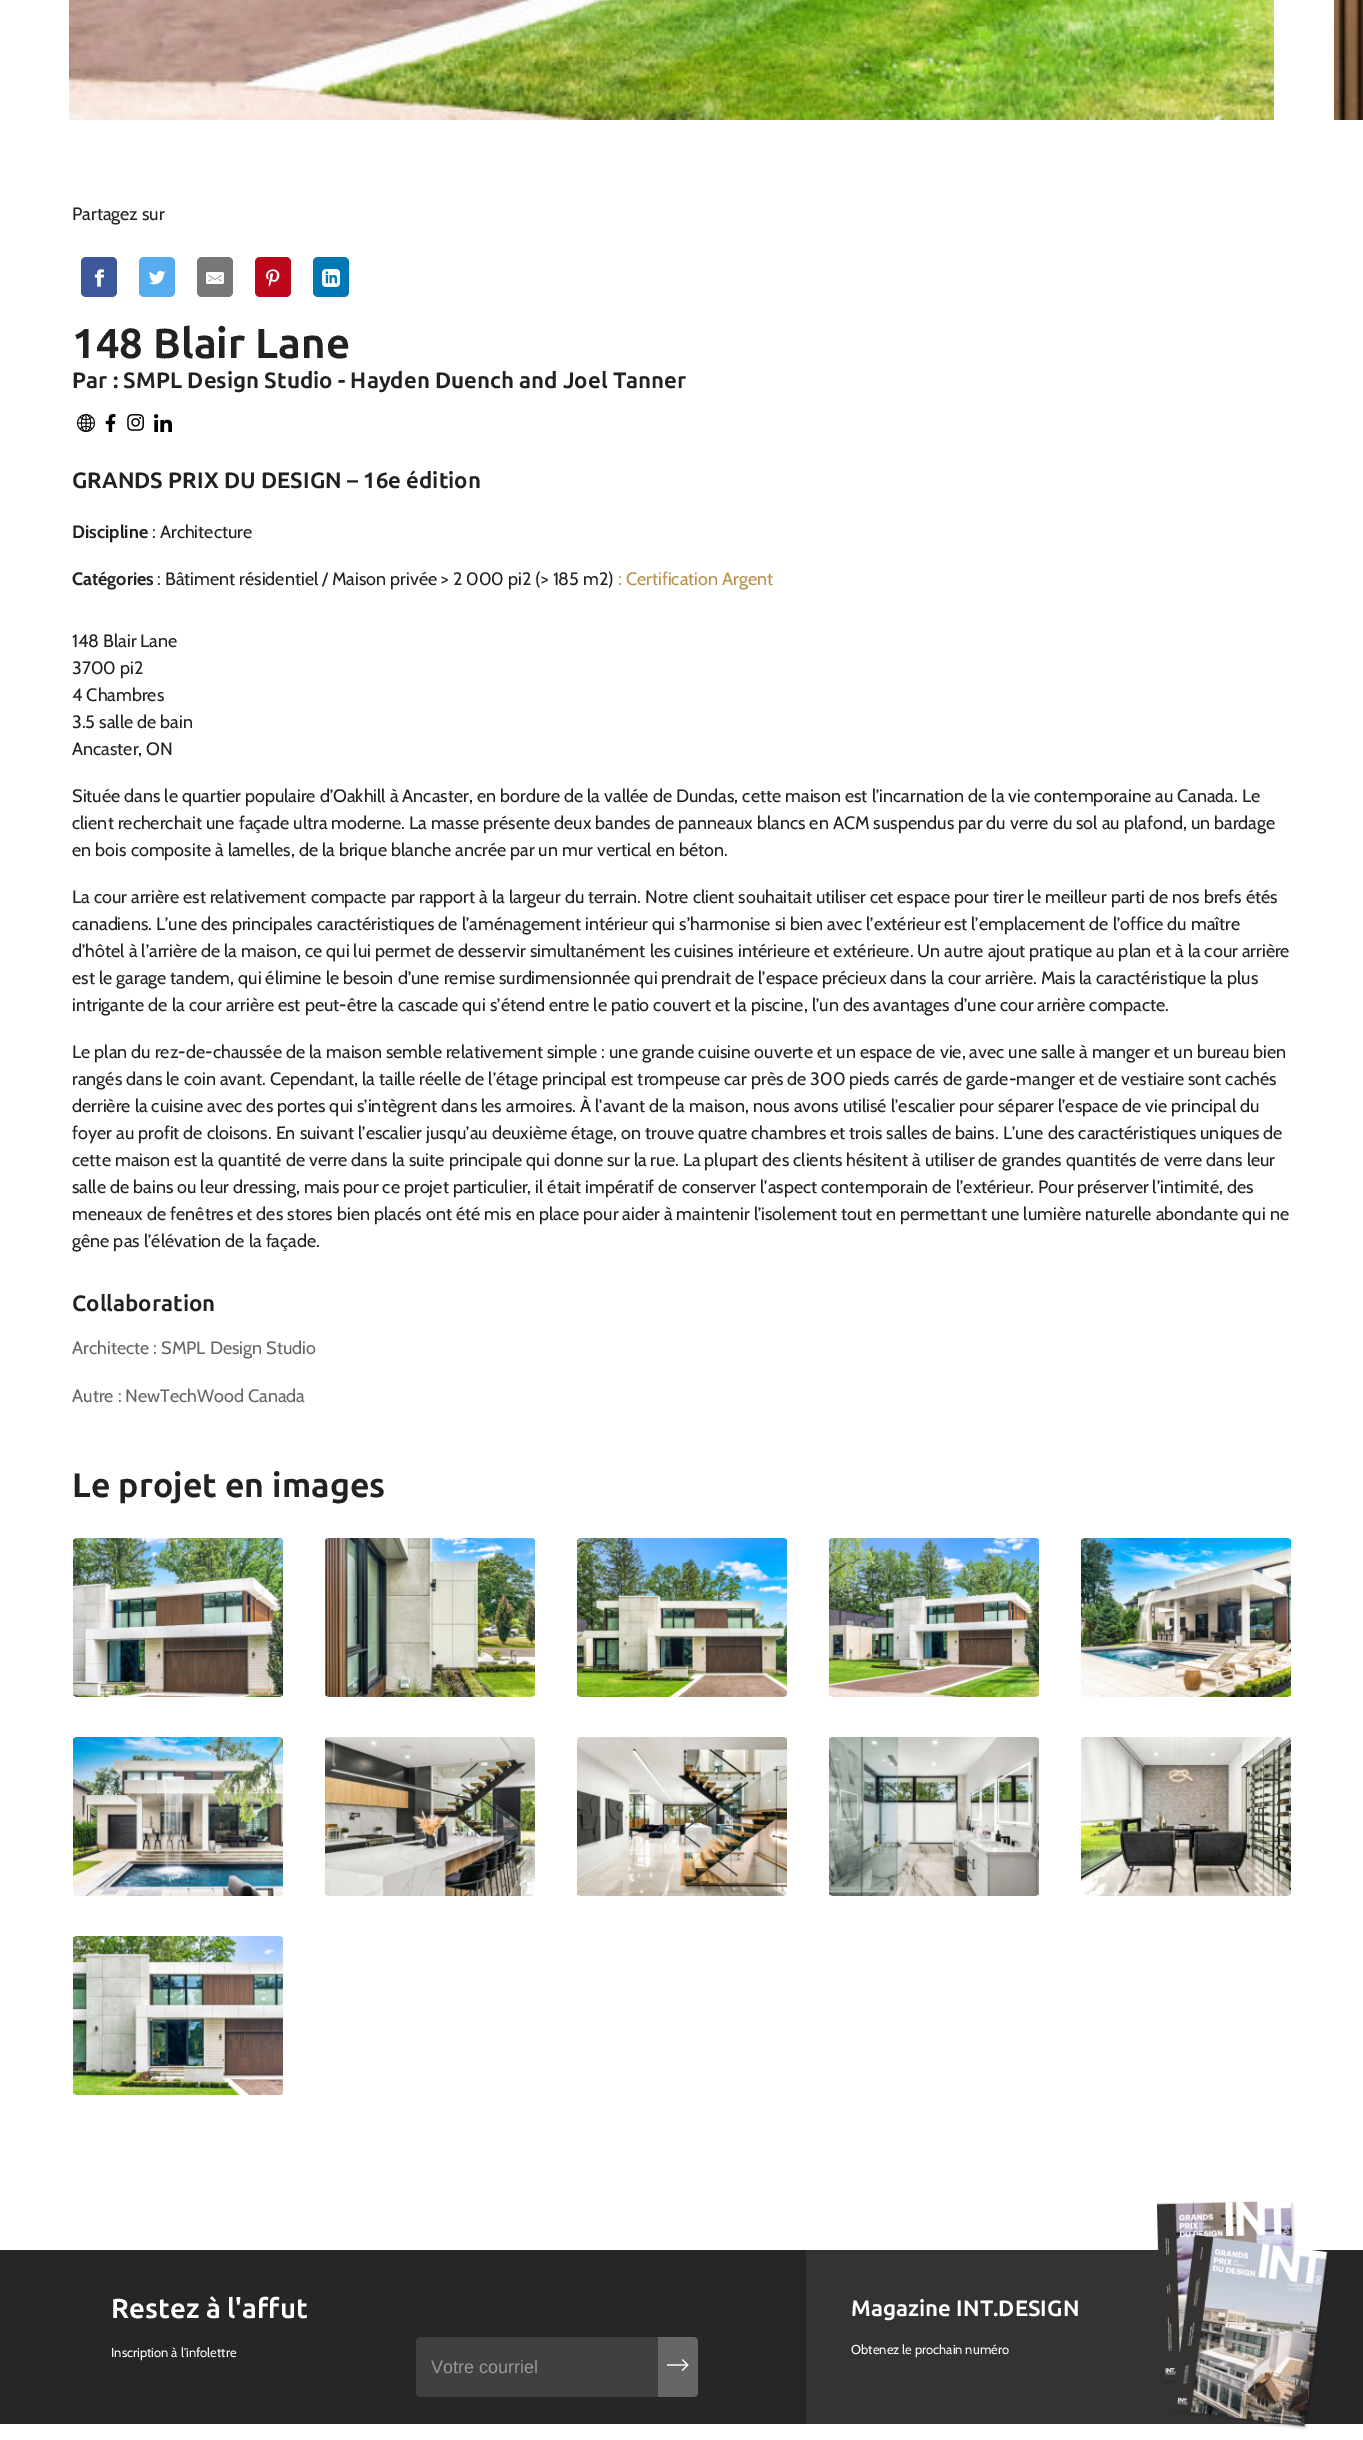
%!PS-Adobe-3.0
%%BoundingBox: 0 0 1363 2440
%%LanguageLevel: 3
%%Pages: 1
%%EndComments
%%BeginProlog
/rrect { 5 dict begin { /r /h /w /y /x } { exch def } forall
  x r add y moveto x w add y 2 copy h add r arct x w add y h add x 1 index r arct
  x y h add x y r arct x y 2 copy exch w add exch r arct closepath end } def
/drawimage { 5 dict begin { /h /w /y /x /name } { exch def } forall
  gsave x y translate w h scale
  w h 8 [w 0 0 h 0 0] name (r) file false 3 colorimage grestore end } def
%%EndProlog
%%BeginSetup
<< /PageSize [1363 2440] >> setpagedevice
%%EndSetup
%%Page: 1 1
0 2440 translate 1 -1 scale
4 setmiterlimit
1 setgray
0 0 1363 2440 rectfill
(images/1.raw) 69 0 1205 120 drawimage
(images/2.raw) 1334 0 29 120 drawimage
0.231 0.349 0.596 setrgbcolor
81 257 36 40 5 rrect fill
(images/3.raw) 94 269 11 18 drawimage
0.333 0.675 0.933 setrgbcolor
139 257 36 40 5 rrect fill
(images/4.raw) 149 270 17 15 drawimage
0.467 setgray
197 257 36 40 5 rrect fill
(images/5.raw) 206 272 18 12 drawimage
0.741 0.031 0.11 setrgbcolor
255 257 36 40 5 rrect fill
(images/6.raw) 266 269 14 18 drawimage
0 0.467 0.71 setrgbcolor
313 257 36 40 5 rrect fill
(images/7.raw) 322 269 18 18 drawimage
(images/8.raw) 77 414 18 18 drawimage
(images/9.raw) 105 414 11 18 drawimage
(images/10.raw) 127 414 17 17 drawimage
(images/11.raw) 154 414 18 18 drawimage
(images/12.raw) 73 1538 210 159 drawimage
(images/13.raw) 325 1538 210 159 drawimage
(images/14.raw) 577 1538 210 159 drawimage
(images/15.raw) 829 1538 210 159 drawimage
(images/16.raw) 1081 1538 210 159 drawimage
(images/17.raw) 73 1737 210 159 drawimage
(images/18.raw) 325 1737 210 159 drawimage
(images/19.raw) 577 1737 210 159 drawimage
(images/20.raw) 829 1737 210 159 drawimage
(images/21.raw) 1081 1737 210 159 drawimage
(images/22.raw) 73 1936 210 159 drawimage
0.149 setgray
0 2250 1363 174 rectfill
0.251 setgray
newpath 421 2337 moveto 658 2337 lineto 658 2397 lineto 421 2397 lineto 418 2397 416 2395 416 2392 curveto 416 2342 lineto 416 2339 418 2337 421 2337 curveto closepath fill
0.4 setgray
newpath 658 2337 moveto 693 2337 lineto 696 2337 698 2339 698 2342 curveto 698 2392 lineto 698 2395 696 2397 693 2397 curveto 658 2397 lineto closepath fill
(images/23.raw) 667 2359 22 12 drawimage
0.2 setgray
806 2250 484 174 rectfill
(images/24.raw) 1157 2200 171 230 drawimage
/Cabin-Regular [18 0 0 -18 0 0] selectfont
0.133 setgray
72 220 moveto (Partagez sur) show
/Ubuntu-Bold [42 0 0 -42 0 0] selectfont
72 358 moveto (148 Blair Lane) show
/Ubuntu-Bold [22.25 0 0 -22.25 0 0] selectfont
72 388 moveto (Par : SMPL Design Studio - Hayden Duench and Joel Tanner) show
72 488 moveto (GRANDS PRIX DU DESIGN – 16e édition) show
/Cabin-Bold [18 0 0 -18 0 0] selectfont
72 538 moveto (Discipline) show
/Cabin-Regular [18 0 0 -18 0 0] selectfont
152 538 moveto (: Architecture) show
/Cabin-Bold [18 0 0 -18 0 0] selectfont
72 585 moveto (Catégories) show
/Cabin-Regular [18 0 0 -18 0 0] selectfont
157 585 moveto (: Bâtiment résidentiel / Maison privée > 2 000 pi2 \(> 185 m2\)) show
0.718 0.565 0.298 setrgbcolor
618 585 moveto (: Certification Argent) show
0.133 setgray
72 647 moveto (148 Blair Lane) show
72 674 moveto (3700 pi2) show
72 701 moveto (4 Chambres) show
72 728 moveto (3.5 salle de bain) show
72 755 moveto (Ancaster, ON) show
72 802 moveto (Située dans le quartier populaire d’Oakhill à Ancaster, en bordure de la vallée de Dundas, cette maison est l’incarnation de la vie contemporaine au Canada. Le) show
72 829 moveto (client recherchait une façade ultra moderne. La masse présente deux bandes de panneaux blancs en ACM suspendus par du verre du sol au plafond, un bardage) show
72 856 moveto (en bois composite à lamelles, de la brique blanche ancrée par un mur vertical en béton.) show
72 903 moveto (La cour arrière est relativement compacte par rapport à la largeur du terrain. Notre client souhaitait utiliser cet espace pour tirer le meilleur parti de nos brefs étés) show
72 930 moveto (canadiens. L’une des principales caractéristiques de l’aménagement intérieur qui s’harmonise si bien avec l’extérieur est l’emplacement de l’office du maître) show
72 957 moveto (d’hôtel à l’arrière de la maison, ce qui lui permet de desservir simultanément les cuisines intérieure et extérieure. Un autre ajout pratique au plan et à la cour arrière) show
72 984 moveto (est le garage tandem, qui élimine le besoin d’une remise surdimensionnée qui prendrait de l’espace précieux dans la cour arrière. Mais la caractéristique la plus) show
72 1011 moveto (intrigante de la cour arrière est peut-être la cascade qui s’étend entre le patio couvert et la piscine, l’un des avantages d’une cour arrière compacte.) show
72 1058 moveto (Le plan du rez-de-chaussée de la maison semble relativement simple : une grande cuisine ouverte et un espace de vie, avec une salle à manger et un bureau bien) show
72 1085 moveto (rangés dans le coin avant. Cependant, la taille réelle de l’étage principal est trompeuse car près de 300 pieds carrés de garde-manger et de vestiaire sont cachés) show
72 1112 moveto (derrière la cuisine avec des portes qui s’intègrent dans les armoires. À l’avant de la maison, nous avons utilisé l’escalier pour séparer l’espace de vie principal du) show
72 1139 moveto (foyer au profit de cloisons. En suivant l’escalier jusqu’au deuxième étage, on trouve quatre chambres et trois salles de bains. L’une des caractéristiques uniques de) show
72 1166 moveto (cette maison est la quantité de verre dans la suite principale qui donne sur la rue. La plupart des clients hésitent à utiliser de grandes quantités de verre dans leur) show
72 1193 moveto (salle de bains ou leur dressing, mais pour ce projet particulier, il était impératif de conserver l’aspect contemporain de l’extérieur. Pour préserver l’intimité, des) show
72 1220 moveto (meneaux de fenêtres et des stores bien placés ont été mis en place pour aider à maintenir l’isolement tout en permettant une lumière naturelle abondante qui ne) show
72 1247 moveto (gêne pas l’élévation de la façade.) show
/Ubuntu-Bold [22.25 0 0 -22.25 0 0] selectfont
72 1311 moveto (Collaboration) show
/Cabin-Regular [18 0 0 -18 0 0] selectfont
0.4 setgray
72 1354 moveto (Architecte : SMPL Design Studio) show
72 1402 moveto (Autre : NewTechWood Canada) show
/Ubuntu-Bold [34 0 0 -34 0 0] selectfont
0.133 setgray
72 1497 moveto (Le projet en images) show
/Ubuntu-Bold [27.5 0 0 -27.5 0 0] selectfont
1 setgray
111 2318 moveto (Restez à l'affut) show
/Cabin-Regular [13 0 0 -13 0 0] selectfont
111 2357 moveto (Inscription à l'infolettre) show
/LiberationSans-Regular [18 0 0 -18 0 0] selectfont
0.6 setgray
431 2373 moveto (Votre courriel) show
/Ubuntu-Bold [22.25 0 0 -22.25 0 0] selectfont
1 setgray
851 2316 moveto (Magazine INT.DESIGN) show
/Cabin-Regular [13 0 0 -13 0 0] selectfont
851 2354 moveto (Obtenez le prochain numéro) show
showpage
%%EOF
